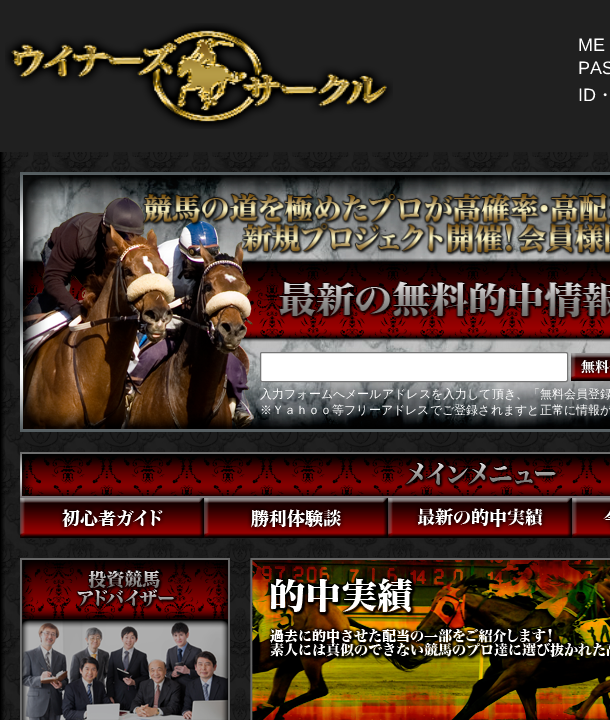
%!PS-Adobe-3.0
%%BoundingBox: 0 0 610 720
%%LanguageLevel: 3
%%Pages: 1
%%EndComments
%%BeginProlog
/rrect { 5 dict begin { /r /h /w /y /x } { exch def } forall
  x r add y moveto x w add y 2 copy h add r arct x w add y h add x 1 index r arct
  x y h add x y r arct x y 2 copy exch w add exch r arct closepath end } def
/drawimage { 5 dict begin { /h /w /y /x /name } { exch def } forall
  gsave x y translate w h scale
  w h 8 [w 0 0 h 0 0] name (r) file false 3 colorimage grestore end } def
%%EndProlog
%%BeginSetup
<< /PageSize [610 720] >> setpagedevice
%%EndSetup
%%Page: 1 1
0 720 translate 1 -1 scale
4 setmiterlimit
0 setgray
0 0 610 720 rectfill
0.125 setgray
0 0 610 152 rectfill
(images/1.raw) 5 23 388 106 drawimage
(images/2.raw) 1 152 609 568 drawimage
(images/3.raw) 20 172 590 260 drawimage
(images/4.raw) 142 192 468 64 drawimage
(images/5.raw) 278 280 332 41 drawimage
1 setgray
260.5 352.5 307 29 1.5 rrect gsave fill grestore
0.463 setgray
stroke
(images/6.raw) 571 353 39 28 drawimage
(images/7.raw) 20 452 590 46 drawimage
(images/8.raw) 20 498 184 40 drawimage
(images/9.raw) 204 498 184 40 drawimage
(images/10.raw) 388 498 184 40 drawimage
(images/11.raw) 572 498 38 40 drawimage
(images/12.raw) 20 558 210 162 drawimage
(images/13.raw) 250 558 360 162 drawimage
/LiberationSans-Regular [18 0 0 -18 0 0] selectfont
1 setgray
578 51 moveto (ME) show
578 74 moveto (PAS) show
578 101 moveto (ID) show
/WenQuanYiZenHei-Medium [18 0 0 -18 0 0] selectfont
596 101 moveto (・) show
/WenQuanYiZenHei-Medium [12 0 0 -12 0 0] selectfont
260 398 moveto (入力フォームへメールアドレスを入力して頂き、「無料会員登録) show
260 414 moveto (※Ｙａｈｏｏ等フリーアドレスでご登録されますと正常に情報が) show
showpage
%%EOF
